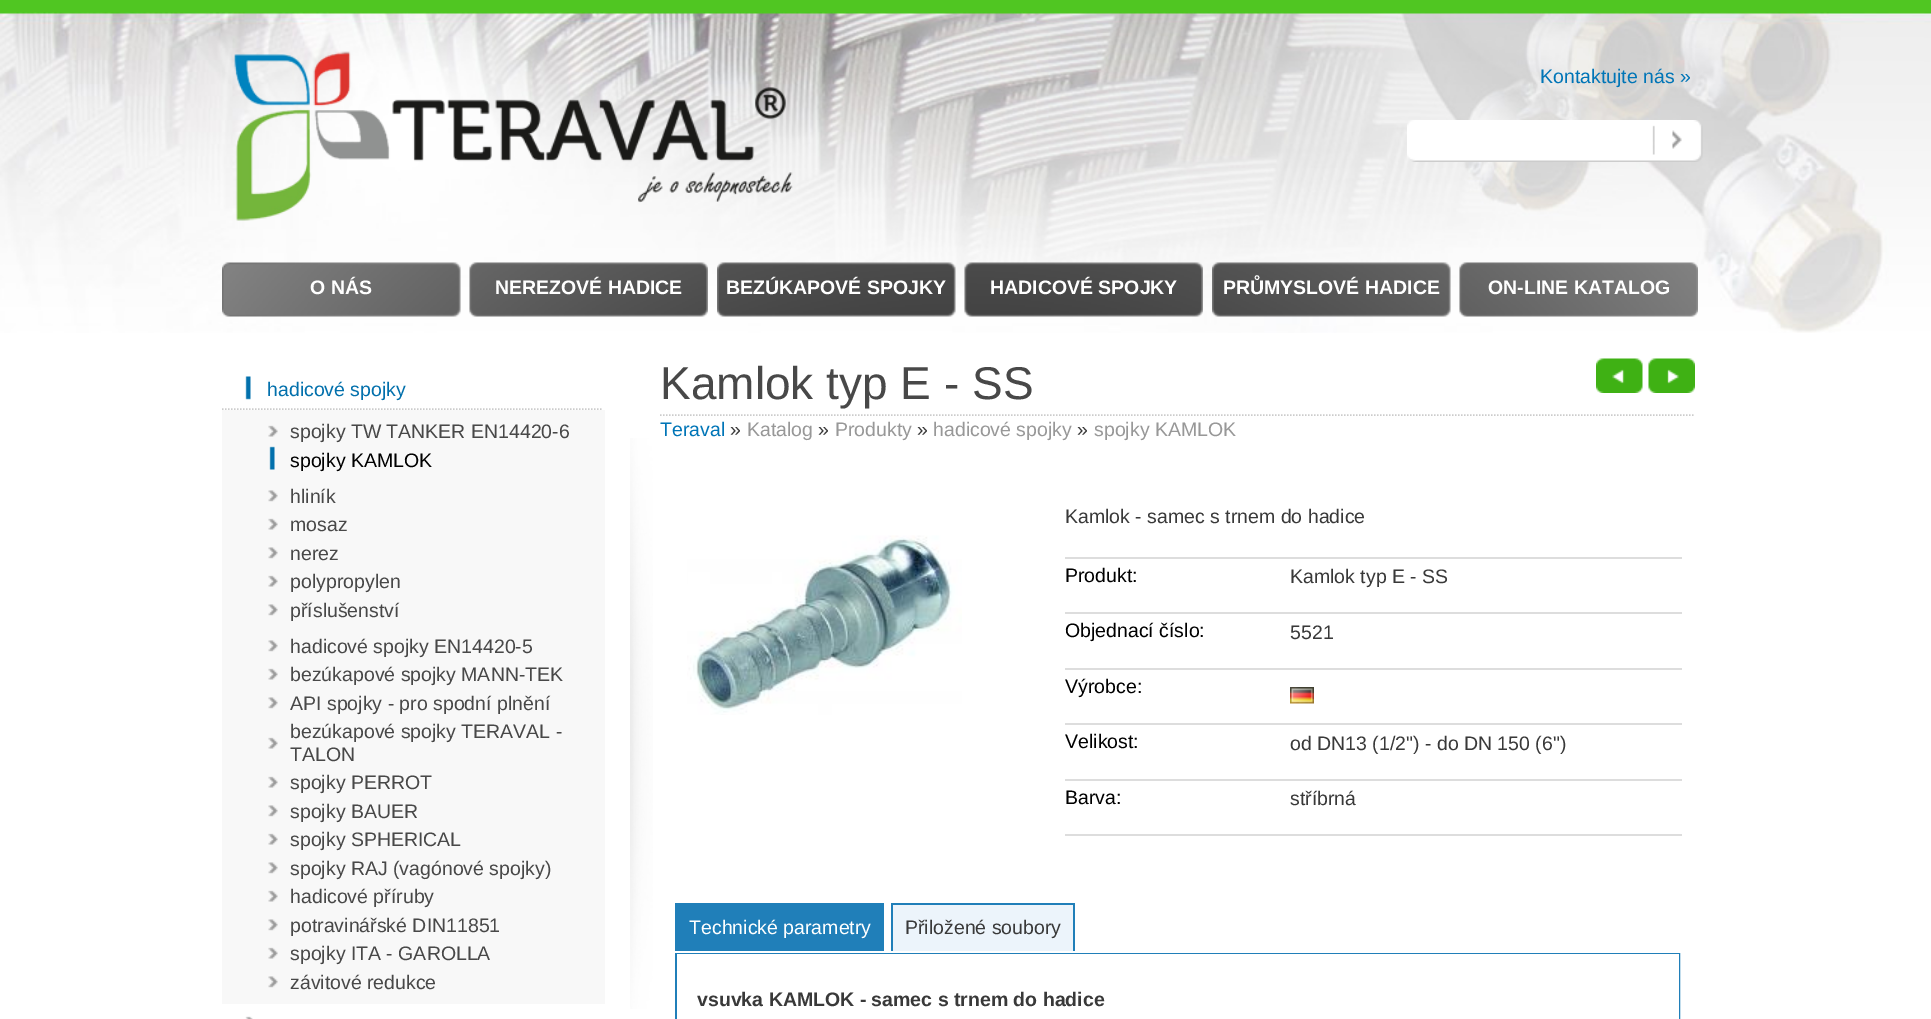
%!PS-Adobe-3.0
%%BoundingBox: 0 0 1931 1019
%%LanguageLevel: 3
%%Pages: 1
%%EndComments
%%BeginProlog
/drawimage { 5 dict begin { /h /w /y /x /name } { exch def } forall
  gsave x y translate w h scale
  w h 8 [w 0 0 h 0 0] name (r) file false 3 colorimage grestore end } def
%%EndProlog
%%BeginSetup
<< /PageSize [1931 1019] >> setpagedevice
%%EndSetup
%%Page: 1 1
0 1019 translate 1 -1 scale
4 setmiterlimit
1 setgray
0 0 1931 1019 rectfill
(images/1.raw) 0 0 1931 12 drawimage
(images/2.raw) 0 12 1931 321 drawimage
(images/3.raw) 234 51 559 170 drawimage
(images/4.raw) 1407 120 296 42 drawimage
(images/5.raw) 222 262 239 55 drawimage
(images/6.raw) 469 262 239 55 drawimage
(images/7.raw) 717 262 239 55 drawimage
(images/8.raw) 964 262 239 55 drawimage
(images/9.raw) 1212 262 239 55 drawimage
(images/10.raw) 1459 262 239 55 drawimage
(images/11.raw) 245 376 6 24 drawimage
0.8 setgray
1.5 setlinewidth
[1.5 1.5] 0 setdash
newpath 222 409 moveto 601.5 409 lineto stroke
0.973 setgray
222 410 383 594 rectfill
(images/12.raw) 268 425 10 12 drawimage
(images/13.raw) 269 446 6 24 drawimage
(images/14.raw) 268 490 10 12 drawimage
(images/12.raw) 268 518 10 12 drawimage
(images/14.raw) 268 547 10 12 drawimage
(images/12.raw) 268 575 10 12 drawimage
(images/14.raw) 268 604 10 12 drawimage
(images/14.raw) 268 640 10 12 drawimage
(images/12.raw) 268 668 10 12 drawimage
(images/14.raw) 268 697 10 12 drawimage
(images/12.raw) 268 737 10 12 drawimage
(images/12.raw) 268 776 10 12 drawimage
(images/14.raw) 268 805 10 12 drawimage
(images/12.raw) 268 833 10 12 drawimage
(images/14.raw) 268 862 10 12 drawimage
(images/12.raw) 268 890 10 12 drawimage
(images/14.raw) 268 919 10 12 drawimage
(images/12.raw) 268 947 10 12 drawimage
(images/14.raw) 268 976 10 12 drawimage
(images/15.raw) 245 1016 8 3 drawimage
(images/16.raw) 630 438 23 571 drawimage
0.8 setgray
newpath 660 415 moveto 1695 415 lineto stroke
(images/17.raw) 1596 358 47 35 drawimage
(images/18.raw) 1648 358 47 35 drawimage
(images/19.raw) 687 535 275 180 drawimage
0.867 setgray
1065 557 617 2 rectfill
1065 612 617 2 rectfill
1065 668 617 2 rectfill
1065 723 617 2 rectfill
(images/20.raw) 1290 687 24 17 drawimage
1065 779 617 2 rectfill
1065 834 617 2 rectfill
0.125 0.498 0.725 setrgbcolor
675 903 209 48 rectfill
0.925 0.957 0.984 setrgbcolor
893 905 180 46 rectfill
0.125 0.498 0.725 setrgbcolor
891 903 183 2 rectfill
1073 903 2 48 rectfill
891 903 2 48 rectfill
2 setlinewidth
[] 0 setdash
676 954 1003 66 rectstroke
1 setgray
677 954 1002 65 rectfill
/LiberationSans-Regular [19.5 0 0 -19.5 0 0] selectfont
0 0.459 0.718 setrgbcolor
1540 83 moveto (Kontaktujte nás ») show
/LiberationSans-Bold [19.5 0 0 -19.5 0 0] selectfont
1 setgray
310 294 moveto (O NÁS) show
495 294 moveto (NEREZOVÉ HADICE) show
726 294 moveto (BEZÚKAPOVÉ SPOJKY) show
990 294 moveto (HADICOVÉ SPOJKY) show
1223 294 moveto (PRŮMYSLOVÉ HADICE) show
1488 294 moveto (ON-LINE KATALOG) show
/LiberationSans-Regular [19.5 0 0 -19.5 0 0] selectfont
0.008 0.439 0.675 setrgbcolor
267 396 moveto (hadicové spojky) show
0.282 setgray
290 438 moveto (spojky TW TANKER EN14420-6) show
0 setgray
290 467 moveto (spojky KAMLOK) show
0.282 setgray
290 503 moveto (hliník) show
290 531 moveto (mosaz) show
290 560 moveto (nerez) show
290 588 moveto (polypropylen) show
290 617 moveto (příslušenství) show
290 653 moveto (hadicové spojky EN14420-5) show
290 681 moveto (bezúkapové spojky MANN-TEK) show
290 710 moveto (API spojky - pro spodní plnění) show
290 738 moveto (bezúkapové spojky TERAVAL -) show
290 761 moveto (TALON) show
290 789 moveto (spojky PERROT) show
290 818 moveto (spojky BAUER) show
290 846 moveto (spojky SPHERICAL) show
290 875 moveto (spojky RAJ \(vagónové spojky\)) show
290 903 moveto (hadicové příruby) show
290 932 moveto (potravinářské DIN11851) show
290 960 moveto (spojky ITA - GAROLLA) show
290 989 moveto (závitové redukce) show
/LiberationSans-Regular [46 0 0 -46 0 0] selectfont
660 399 moveto (Kamlok typ E - SS) show
/LiberationSans-Regular [19.5 0 0 -19.5 0 0] selectfont
0 0.459 0.718 setrgbcolor
660 436 moveto (Teraval) show
0.224 setgray
730 436 moveto (») show
0.596 setgray
747 436 moveto (Katalog) show
0.224 setgray
818 436 moveto (») show
0.596 setgray
835 436 moveto (Produkty) show
0.224 setgray
917 436 moveto (») show
0.596 setgray
933 436 moveto (hadicové spojky) show
0.224 setgray
1077 436 moveto (») show
0.596 setgray
1094 436 moveto (spojky KAMLOK) show
0.224 setgray
1065 523 moveto (Kamlok - samec s trnem do hadice) show
0 setgray
1065 582 moveto (Produkt:) show
0.224 setgray
1290 583 moveto (Kamlok typ E - SS) show
0 setgray
1065 637 moveto (Objednací číslo:) show
0.224 setgray
1290 639 moveto (5521) show
0 setgray
1065 693 moveto (Výrobce:) show
1065 748 moveto (Velikost:) show
0.224 setgray
1290 750 moveto (od DN13 \(1/2"\) - do DN 150 \(6"\)) show
0 setgray
1065 804 moveto (Barva:) show
0.224 setgray
1290 805 moveto (stříbrná) show
1 setgray
689 934 moveto (Technické parametry) show
0.224 setgray
905 934 moveto (Přiložené soubory) show
/LiberationSans-Bold [19.5 0 0 -19.5 0 0] selectfont
697 1006 moveto (vsuvka KAMLOK - samec s trnem do hadice) show
showpage
%%EOF
